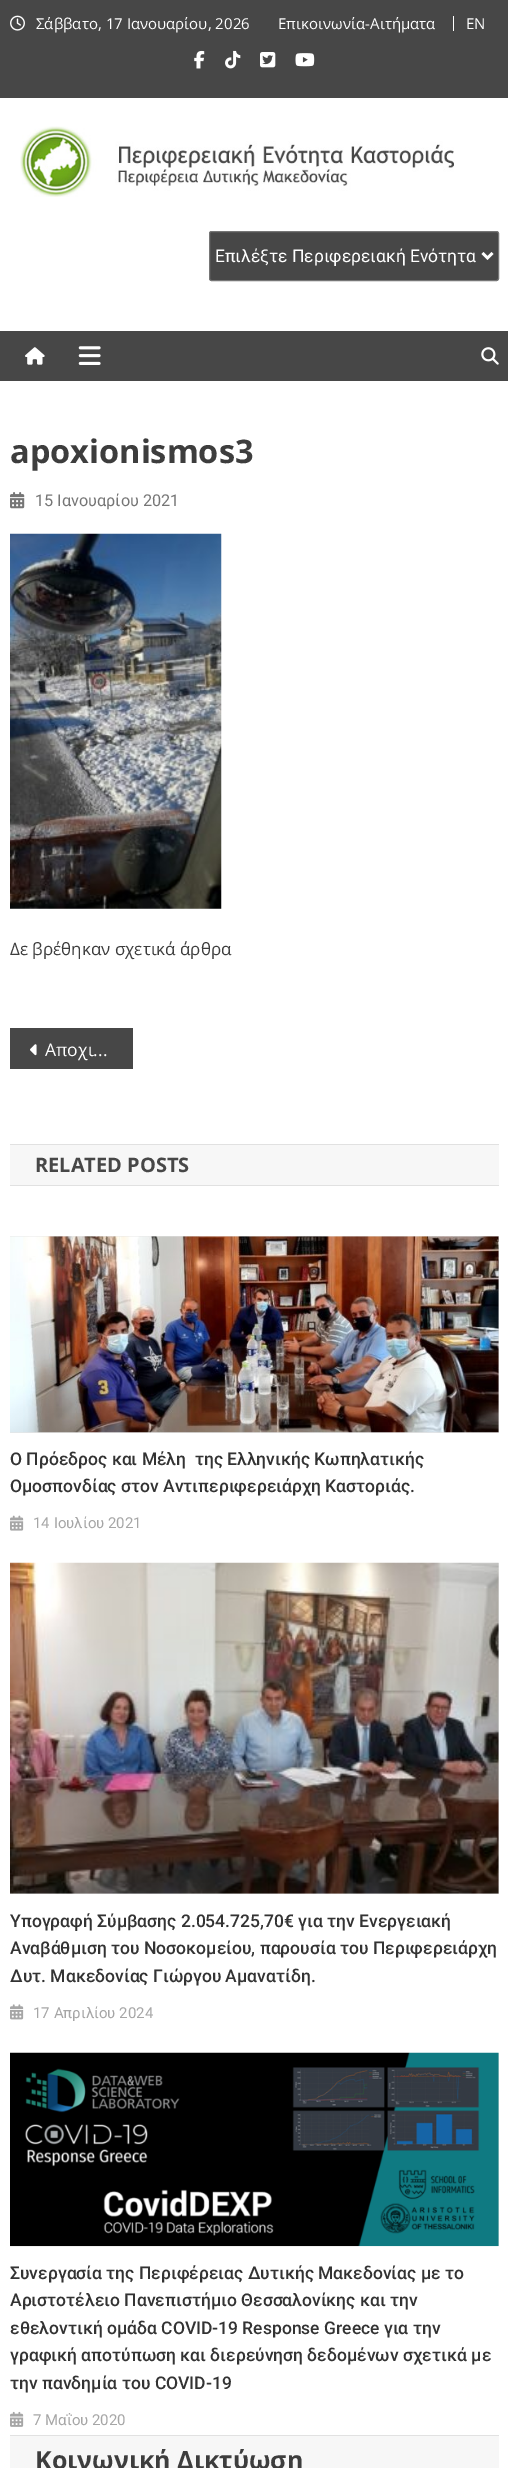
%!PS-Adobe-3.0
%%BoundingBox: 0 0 508 2468
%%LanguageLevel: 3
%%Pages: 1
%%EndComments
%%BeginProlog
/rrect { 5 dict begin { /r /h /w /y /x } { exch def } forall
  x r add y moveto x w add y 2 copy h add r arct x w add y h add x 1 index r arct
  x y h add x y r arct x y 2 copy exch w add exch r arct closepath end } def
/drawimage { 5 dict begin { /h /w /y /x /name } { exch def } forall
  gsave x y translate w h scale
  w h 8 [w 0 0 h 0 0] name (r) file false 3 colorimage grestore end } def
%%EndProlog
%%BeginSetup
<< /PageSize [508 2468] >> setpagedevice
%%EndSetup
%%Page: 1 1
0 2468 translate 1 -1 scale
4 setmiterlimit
1 setgray
0 0 508 2468 rectfill
0.278 setgray
0 0 508 98 rectfill
(images/1.raw) 10 15 15 16 drawimage
1 setgray
453 16 1 15 rectfill
(images/2.raw) 194 50 11 19 drawimage
(images/3.raw) 225 50 16 19 drawimage
(images/4.raw) 260 52 16 16 drawimage
(images/5.raw) 295 53 20 14 drawimage
(images/6.raw) 20 126 434 71 drawimage
0.278 setgray
209.5 231.5 289 49 2 rrect gsave fill grestore
0.463 setgray
stroke
1 setgray
2.5 setlinewidth
newpath 482.5 253 moveto 487.5 258 lineto 492.5 253 lineto stroke
0.278 setgray
0 331 508 50 rectfill
(images/7.raw) 25 347 20 18 drawimage
(images/8.raw) 78 346 23 19 drawimage
(images/9.raw) 481 347 18 18 drawimage
(images/10.raw) 10 492 15 17 drawimage
(images/11.raw) 10 533 212 376 drawimage
10 1028 123 41 rectfill
(images/12.raw) 30 1044 7 12 drawimage
0.969 setgray
10 1145 489 40 rectfill
0.882 setgray
10 1144 489 1 rectfill
10 1185 489 1 rectfill
0.898 setgray
10 1236 489 197 rectfill
(images/13.raw) 10 1236 489 197 drawimage
(images/14.raw) 10 1515 14 16 drawimage
10 1563 489 331 rectfill
(images/15.raw) 10 1562 489 332 drawimage
(images/16.raw) 10 2004 14 16 drawimage
498 2053 1 193 rectfill
(images/17.raw) 10 2052 489 195 drawimage
(images/18.raw) 10 2411 14 16 drawimage
0.969 setgray
10 2436 489 32 rectfill
0.882 setgray
10 2435 489 1 rectfill
/OpenSans-Regular [15 0 0 -15 0 0] selectfont
1 setgray
36 29 moveto (Σάββατο, 17 Ιανουαρίου, 2026) show
278 29 moveto (Επικοινωνία-Αιτήματα) show
466 29 moveto (EN) show
/Roboto-Regular [17.5 0 0 -17.5 0 0] selectfont
215 262 moveto (Επιλέξτε Περιφερειακή Ενότητα) show
/OpenSans-Bold [32.5 0 0 -32.5 0 0] selectfont
0.239 setgray
10 463 moveto (apoxionismos3) show
/Roboto-Regular [16.25 0 0 -16.25 0 0] selectfont
0.463 setgray
35 506 moveto (15 Ιανουαρίου 2021) show
/OpenSans-Regular [17 0 0 -17 0 0] selectfont
0.239 setgray
10 955 moveto (Δε βρέθηκαν σχετικά άρθρα) show
/OpenSans-Regular [17.5 0 0 -17.5 0 0] selectfont
1 setgray
45 1056 moveto (Αποχι...) show
/OpenSans-Bold [20 0 0 -20 0 0] selectfont
0.278 setgray
35 1172 moveto (RELATED POSTS) show
/Roboto-Medium [17.5 0 0 -17.5 0 0] selectfont
0.2 setgray
10 1465 moveto (Ο Πρόεδρος και Μέλη  της Ελληνικής Κωπηλατικής) show
10 1492 moveto (Ομοσπονδίας στον Αντιπεριφερειάρχη Καστοριάς.) show
/Roboto-Regular [15 0 0 -15 0 0] selectfont
0.651 setgray
33 1528 moveto (14 Ιουλίου 2021) show
/Roboto-Medium [17.5 0 0 -17.5 0 0] selectfont
0.2 setgray
10 1927 moveto (Υπογραφή Σύμβασης 2.054.725,70€ για την Ενεργειακή) show
10 1954 moveto (Αναβάθμιση του Νοσοκομείου, παρουσία του Περιφερειάρχη) show
10 1982 moveto (Δυτ. Μακεδονίας Γιώργου Αμανατίδη.) show
/Roboto-Regular [15 0 0 -15 0 0] selectfont
0.651 setgray
33 2018 moveto (17 Απριλίου 2024) show
/Roboto-Medium [17.5 0 0 -17.5 0 0] selectfont
0.2 setgray
10 2279 moveto (Συνεργασία της Περιφέρειας Δυτικής Μακεδονίας με το) show
10 2306 moveto (Αριστοτέλειο Πανεπιστήμιο Θεσσαλονίκης και την) show
10 2334 moveto (εθελοντική ομάδα COVID-19 Response Greece για την) show
10 2361 moveto (γραφική αποτύπωση και διερεύνηση δεδομένων σχετικά με) show
10 2389 moveto (την πανδημία του COVID-19) show
/Roboto-Regular [15 0 0 -15 0 0] selectfont
0.651 setgray
33 2425 moveto (7 Μαΐου 2020) show
/OpenSans-Bold [25 0 0 -25 0 0] selectfont
0.239 setgray
35 2469 moveto (Κοινωνική Δικτύωση) show
showpage
%%EOF
